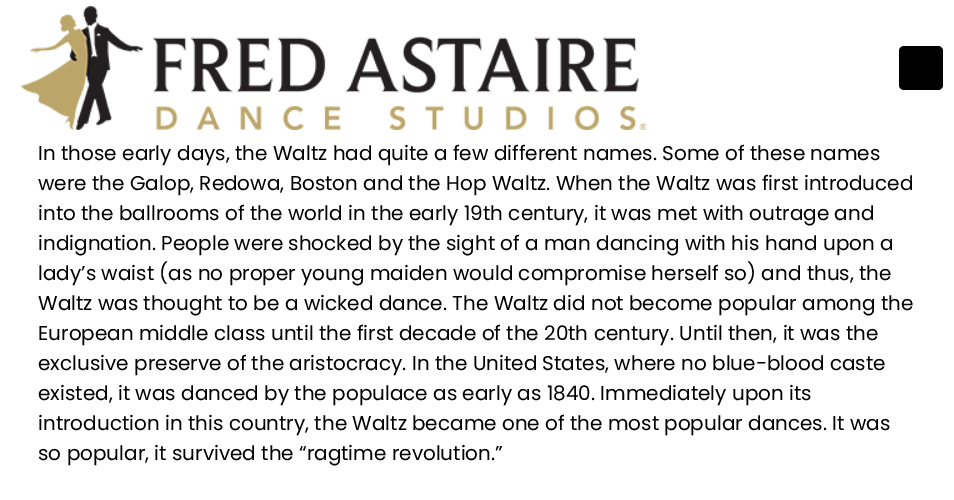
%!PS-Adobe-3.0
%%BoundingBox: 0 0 954 500
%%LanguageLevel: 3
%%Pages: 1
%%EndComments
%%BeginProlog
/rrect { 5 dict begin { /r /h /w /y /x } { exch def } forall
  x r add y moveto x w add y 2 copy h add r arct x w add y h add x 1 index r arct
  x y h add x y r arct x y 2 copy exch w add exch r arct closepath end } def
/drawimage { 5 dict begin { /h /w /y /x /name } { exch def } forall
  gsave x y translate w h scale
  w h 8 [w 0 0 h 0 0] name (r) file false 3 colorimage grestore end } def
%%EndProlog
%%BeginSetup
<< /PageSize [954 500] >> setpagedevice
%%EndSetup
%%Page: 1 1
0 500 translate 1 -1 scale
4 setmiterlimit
1 setgray
0 0 954 500 rectfill
(images/1.raw) 21 6 626 124 drawimage
0 setgray
899 46 44 44 5 rrect fill
/Poppins-Regular [20 0 0 -20 0 0] selectfont
38 160 moveto (In those early days, the Waltz had quite a few different names. Some of these names) show
38 190 moveto (were the Galop, Redowa, Boston and the Hop Waltz. When the Waltz was first introduced) show
38 220 moveto (into the ballrooms of the world in the early 19th century, it was met with outrage and) show
38 250 moveto (indignation. People were shocked by the sight of a man dancing with his hand upon a) show
38 280 moveto (lady’s waist \(as no proper young maiden would compromise herself so\) and thus, the) show
38 310 moveto (Waltz was thought to be a wicked dance. The Waltz did not become popular among the) show
38 340 moveto (European middle class until the first decade of the 20th century. Until then, it was the) show
38 370 moveto (exclusive preserve of the aristocracy. In the United States, where no blue-blood caste) show
38 400 moveto (existed, it was danced by the populace as early as 1840. Immediately upon its) show
38 430 moveto (introduction in this country, the Waltz became one of the most popular dances. It was) show
38 460 moveto (so popular, it survived the “ragtime revolution.”) show
showpage
%%EOF
